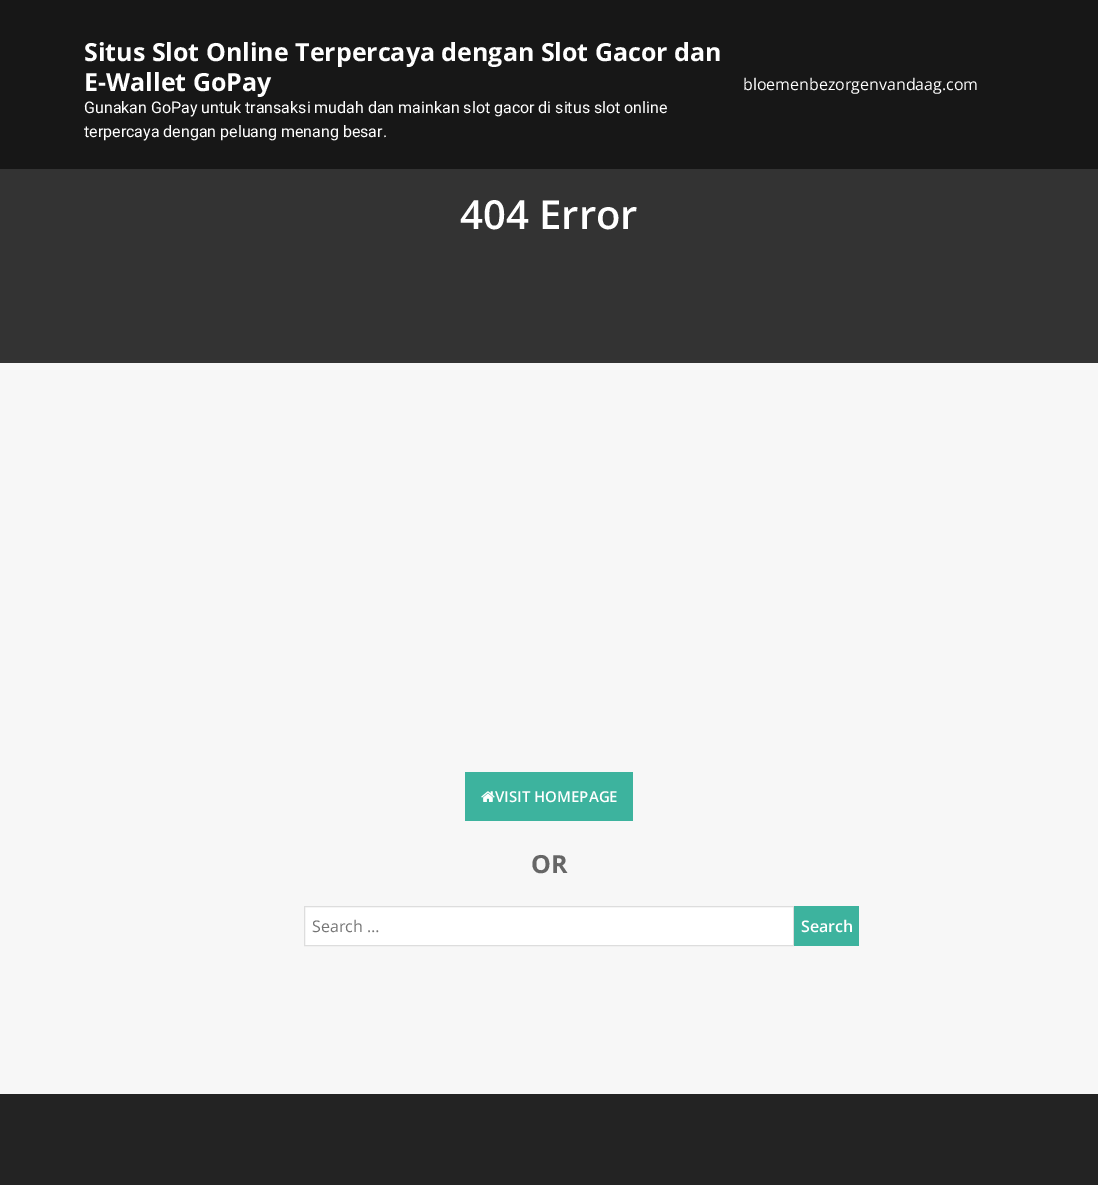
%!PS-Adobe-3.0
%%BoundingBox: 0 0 1098 1185
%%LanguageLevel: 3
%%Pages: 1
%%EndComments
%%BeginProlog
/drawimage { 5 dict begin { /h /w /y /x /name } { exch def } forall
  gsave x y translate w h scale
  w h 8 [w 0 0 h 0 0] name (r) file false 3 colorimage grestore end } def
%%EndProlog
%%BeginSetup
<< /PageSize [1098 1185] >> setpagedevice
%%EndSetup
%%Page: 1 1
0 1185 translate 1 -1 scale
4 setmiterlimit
0.2 setgray
0 0 1098 1185 rectfill
0.09 setgray
0 0 1098 169 rectfill
0.969 setgray
0 363 1098 731 rectfill
0.239 0.702 0.62 setrgbcolor
465 772 168 49 rectfill
(images/1.raw) 481 791 14 11 drawimage
1 setgray
newpath 304.5 906.5 moveto 793.5 906.5 lineto 793.5 945.5 lineto 304.5 945.5 lineto closepath gsave fill grestore
0.867 setgray
stroke
0.239 0.702 0.62 setrgbcolor
794 906 65 40 rectfill
0.137 setgray
0 1094 1098 91 rectfill
/OpenSans-Bold [25 0 0 -25 0 0] selectfont
1 setgray
84 61 moveto (Situs Slot Online Terpercaya dengan Slot Gacor dan) show
84 91 moveto (E-Wallet GoPay) show
/Roboto-Regular [16 0 0 -16 0 0] selectfont
84 113 moveto (Gunakan GoPay untuk transaksi mudah dan mainkan slot gacor di situs slot online) show
84 137 moveto (terpercaya dengan peluang menang besar.) show
/OpenSans-Regular [16 0 0 -16 0 0] selectfont
743 90 moveto (bloemenbezorgenvandaag.com) show
/OpenSans-SemiBold [40 0 0 -40 0 0] selectfont
460 229 moveto (404 Error) show
/OpenSans-SemiBold [15 0 0 -15 0 0] selectfont
495 802 moveto (VISIT HOMEPAGE) show
/OpenSans-Bold [25 0 0 -25 0 0] selectfont
0.4 setgray
531 873 moveto (OR) show
/OpenSans-Regular [16 0 0 -16 0 0] selectfont
0.459 setgray
312 932 moveto (Search …) show
/OpenSans-SemiBold [16 0 0 -16 0 0] selectfont
1 setgray
801 932 moveto (Search) show
showpage
%%EOF
